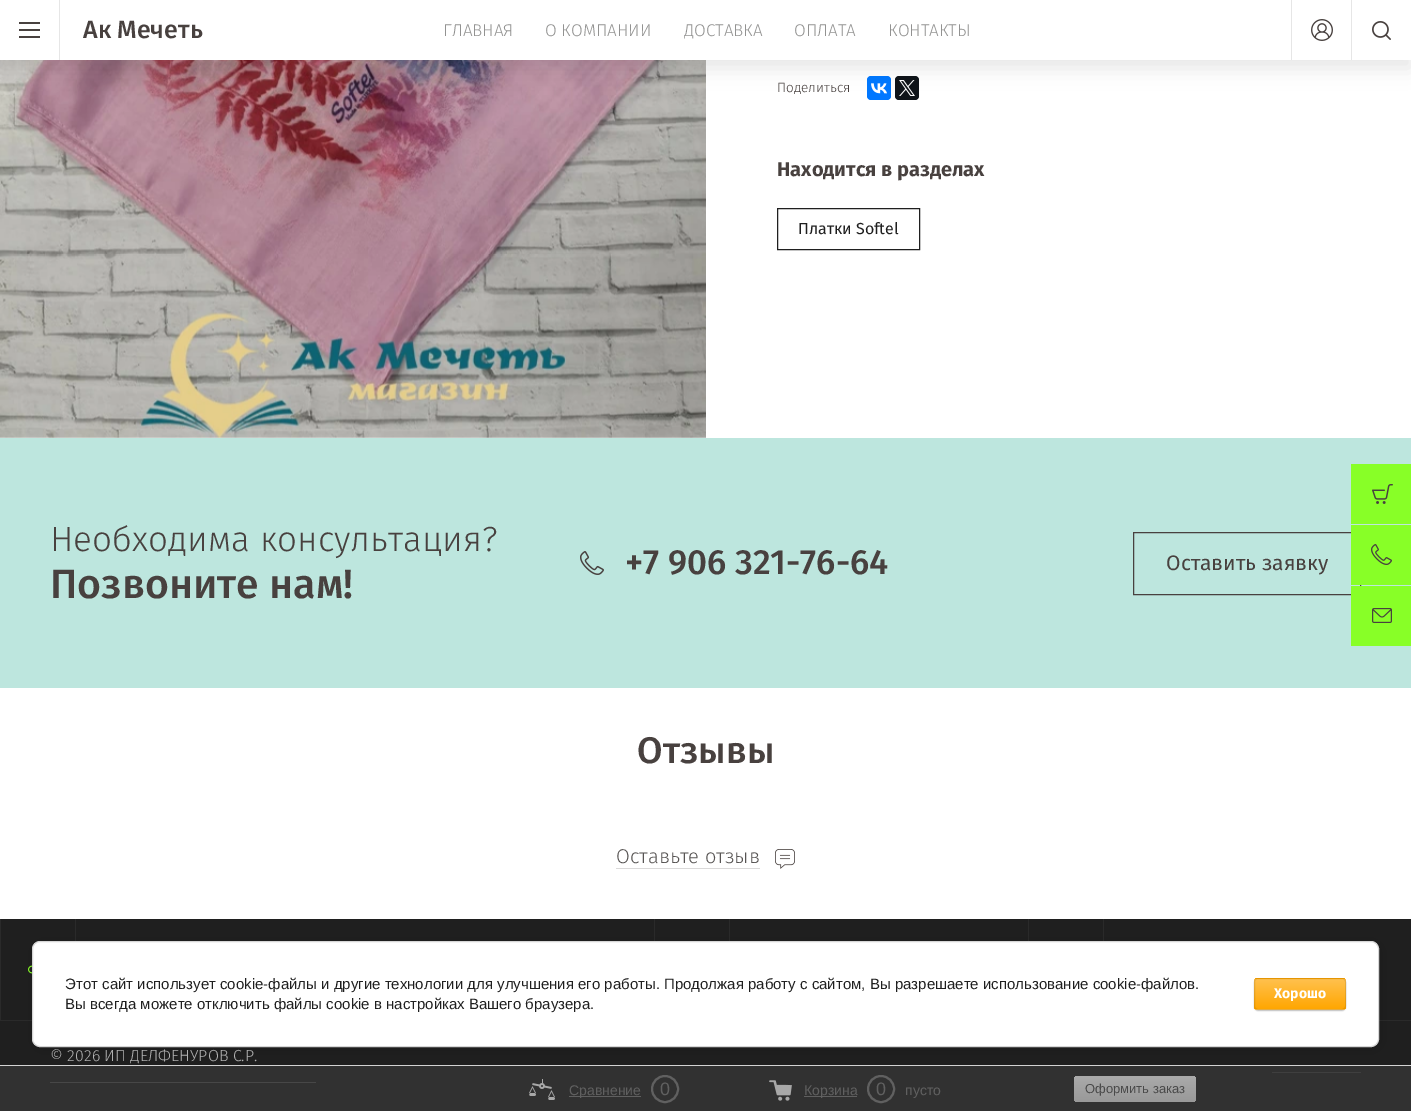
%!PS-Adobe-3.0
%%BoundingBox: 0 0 1411 1111
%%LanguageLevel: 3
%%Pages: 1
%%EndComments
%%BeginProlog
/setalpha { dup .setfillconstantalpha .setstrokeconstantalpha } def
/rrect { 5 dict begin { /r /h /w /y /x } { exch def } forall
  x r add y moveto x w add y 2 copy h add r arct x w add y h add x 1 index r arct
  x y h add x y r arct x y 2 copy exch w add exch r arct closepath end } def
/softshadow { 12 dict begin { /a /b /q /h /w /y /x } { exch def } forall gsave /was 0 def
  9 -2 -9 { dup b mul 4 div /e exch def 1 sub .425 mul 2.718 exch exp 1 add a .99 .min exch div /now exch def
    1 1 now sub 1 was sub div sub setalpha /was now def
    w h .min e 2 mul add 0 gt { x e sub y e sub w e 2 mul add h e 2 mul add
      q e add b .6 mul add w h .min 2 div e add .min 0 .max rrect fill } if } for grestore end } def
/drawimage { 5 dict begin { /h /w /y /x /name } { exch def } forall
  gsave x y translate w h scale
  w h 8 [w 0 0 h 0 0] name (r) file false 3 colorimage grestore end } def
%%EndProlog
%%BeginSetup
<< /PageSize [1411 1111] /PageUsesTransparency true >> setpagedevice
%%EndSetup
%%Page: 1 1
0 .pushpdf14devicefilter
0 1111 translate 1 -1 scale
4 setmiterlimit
1 setgray
0 0 1411 1111 rectfill
(images/3.raw) 0 60 706 378 drawimage
0 0.467 1 setrgbcolor
867 76 24 24 4 rrect fill
(images/4.raw) 871 83 16 11 drawimage
0.059 0.078 0.098 setrgbcolor
895 76 24 24 4 rrect fill
(images/5.raw) 899 80 16 16 drawimage
0 setgray
0 8 1411 60 0 10 0.1 softshadow
1 setgray
0 0 1411 60 rectfill
0.902 setgray
59 0 1 60 rectfill
0.282 0.255 0.247 setrgbcolor
19 22 21 2 rectfill
19 29 21 2 rectfill
19 36 21 2 rectfill
(images/1.raw) 1311 19 22 22 drawimage
0.902 setgray
1291 0 1 60 rectfill
(images/2.raw) 1372 21 19 19 drawimage
1351 0 1 60 rectfill
0.122 setgray
777.5 208.5 142 41 rectstroke
0.741 0.902 0.871 setrgbcolor
0 438 1411 250 rectfill
(images/6.raw) 580 551 24 24 drawimage
0.282 0.255 0.247 setrgbcolor
1133.5 532.5 227 62 rectstroke
0.855 0.851 0.851 setrgbcolor
616 868 144 1 rectfill
(images/7.raw) 775 849 20 20 drawimage
0.122 setgray
0 919 1411 192 rectfill
1 setgray
50 1082 266 1 rectfill
0.698 setgray
1272 1072 89 1 rectfill
0.9 setalpha
0.2 setgray
0 1066 1411 45 rectfill
1 setalpha
0.831 setgray
0 1065 1411 1 rectfill
(images/8.raw) 529 1079 26 21 drawimage
0.376 setgray
569 1096 72 1 rectfill
2 setlinewidth
newpath 665 1089 13 0 360 arc closepath stroke
(images/9.raw) 769 1080 23 21 drawimage
804 1096 53 1 rectfill
newpath 881 1089 13 0 360 arc closepath stroke
gsave 1074 1076 122 26 4 rrect clip newpath
<< /ShadingType 2 /ColorSpace /DeviceRGB /Coords [1135 1076 1135 1102] /Extend [true true] /Function << /FunctionType 2 /Domain [0 1] /C0 [0.667 0.667 0.667] /C1 [0.6 0.6 0.6] /N 1 >> >> shfill grestore
0.165 setgray
0 1020 1411 1 rectfill
(images/10.raw) 28 965 4 9 drawimage
75 919 1 22 rectfill
0 919 1 101 rectfill
729 919 1 22 rectfill
654 919 1 22 rectfill
1103 919 1 22 rectfill
1028 919 1 22 rectfill
0.533 1 0.153 setrgbcolor
1351 464 60 60 rectfill
(images/11.raw) 1372 484 21 20 drawimage
1351 525 60 60 rectfill
(images/12.raw) 1371 544 21 21 drawimage
1351 586 60 60 rectfill
(images/13.raw) 1372 608 20 15 drawimage
0 setgray
34 943 1347 106 8 9 0.14 softshadow
1 setgray
32.5 941.5 1346 105 7.5 rrect gsave fill grestore
0.839 setgray
1 setlinewidth
stroke
0 setgray
1254 979 92 32 4 0.5 0.2 softshadow
gsave
1254 978 92 32 4 rrect clip newpath
gsave newpath 1254 978 moveto 1346 978 lineto 1346 979 lineto 1254 979 lineto closepath clip newpath
<< /ShadingType 2 /ColorSpace /DeviceRGB /Coords [1300 949 1300 979] /Extend [true true] /Function << /FunctionType 2 /Domain [0 1] /C0 [1 0.757 0.306] /C1 [1 0.651 0.004] /N 1 >> >> shfill grestore
gsave newpath 1254 979 moveto 1346 979 lineto 1346 1009 lineto 1254 1009 lineto closepath clip newpath
<< /ShadingType 2 /ColorSpace /DeviceRGB /Coords [1300 979 1300 1009] /Extend [true true] /Function << /FunctionType 2 /Domain [0 1] /C0 [1 0.757 0.306] /C1 [1 0.651 0.004] /N 1 >> >> shfill grestore
gsave newpath 1254 1009 moveto 1346 1009 lineto 1346 1010 lineto 1254 1010 lineto closepath clip newpath
<< /ShadingType 2 /ColorSpace /DeviceRGB /Coords [1300 1009 1300 1039] /Extend [true true] /Function << /FunctionType 2 /Domain [0 1] /C0 [1 0.757 0.306] /C1 [1 0.651 0.004] /N 1 >> >> shfill grestore
grestore
0.1 setalpha
1254.5 978.5 91 31 3.5 rrect stroke
/FiraSans-Medium [25 0 0 -25 0 0] selectfont
1 setalpha
0.282 0.255 0.247 setrgbcolor
83 38 moveto (Ак Мечеть) show
/FiraSans-Light [17 0 0 -17 0 0] selectfont
0.573 0.573 0.569 setrgbcolor
443 36 moveto (ГЛАВНАЯ) show
545 36 moveto (О КОМПАНИИ) show
684 36 moveto (ДОСТАВКА) show
794 36 moveto (ОПЛАТА) show
888 36 moveto (КОНТАКТЫ) show
/FiraSans-Light [13.5 0 0 -13.5 0 0] selectfont
0.282 0.255 0.247 setrgbcolor
777 92 moveto (Поделиться) show
/FiraSans-Bold [20 0 0 -20 0 0] selectfont
777 176 moveto (Находится в разделах) show
/FiraSans-Regular [16 0 0 -16 0 0] selectfont
0.122 setgray
798 234 moveto (Платки Softel) show
/FiraSans-Light [35 0 0 -35 0 0] selectfont
0.282 0.255 0.247 setrgbcolor
50 551 moveto (Необходима консультация?) show
/FiraSans-Medium [41 0 0 -41 0 0] selectfont
50 598 moveto (Позвоните нам!) show
/FiraSans-Medium [35 0 0 -35 0 0] selectfont
625 574 moveto (+7 906 321-76-64) show
/FiraSans-Regular [21 0 0 -21 0 0] selectfont
1166 570 moveto (Оставить заявку) show
/FiraSans-Medium [37 0 0 -37 0 0] selectfont
637 763 moveto (Отзывы) show
/FiraSans-Light [20 0 0 -20 0 0] selectfont
0.341 0.329 0.325 setrgbcolor
616 863 moveto (Оставьте отзыв) show
/LiberationSans-Regular [14 0 0 -14 0 0] selectfont
0.376 setgray
569 1095 moveto (Сравнение) show
/LiberationSans-Regular [18 0 0 -18 0 0] selectfont
660 1095 moveto (0) show
/LiberationSans-Regular [14 0 0 -14 0 0] selectfont
804 1095 moveto (Корзина) show
/LiberationSans-Regular [18 0 0 -18 0 0] selectfont
876 1095 moveto (0) show
/LiberationSans-Regular [14 0 0 -14 0 0] selectfont
905 1095 moveto (пусто) show
/LiberationSans-Regular [13 0 0 -13 0 0] selectfont
0.286 setgray
1085 1093 moveto (Оформить заказ) show
/FiraSans-Light [16 0 0 -16 0 0] selectfont
0.698 setgray
50 1061 moveto (© 2026 ИП ДЕЛФЕНУРОВ С.Р.) show
/LiberationSans-Regular [15 0 0 -15 0 0] selectfont
0.122 setgray
65 989 moveto (Этот сайт использует cookie-файлы и другие технологии для улучшения его работы. Продолжая работу с сайтом, Вы разрешаете использование cookie-файлов.) show
65 1009 moveto (Вы всегда можете отключить файлы cookie в настройках Вашего браузера.) show
/FiraSans-Bold [14 0 0 -14 0 0] selectfont
1 setgray
1274 998 moveto (Хорошо) show
.poppdf14devicefilter showpage
%%EOF
